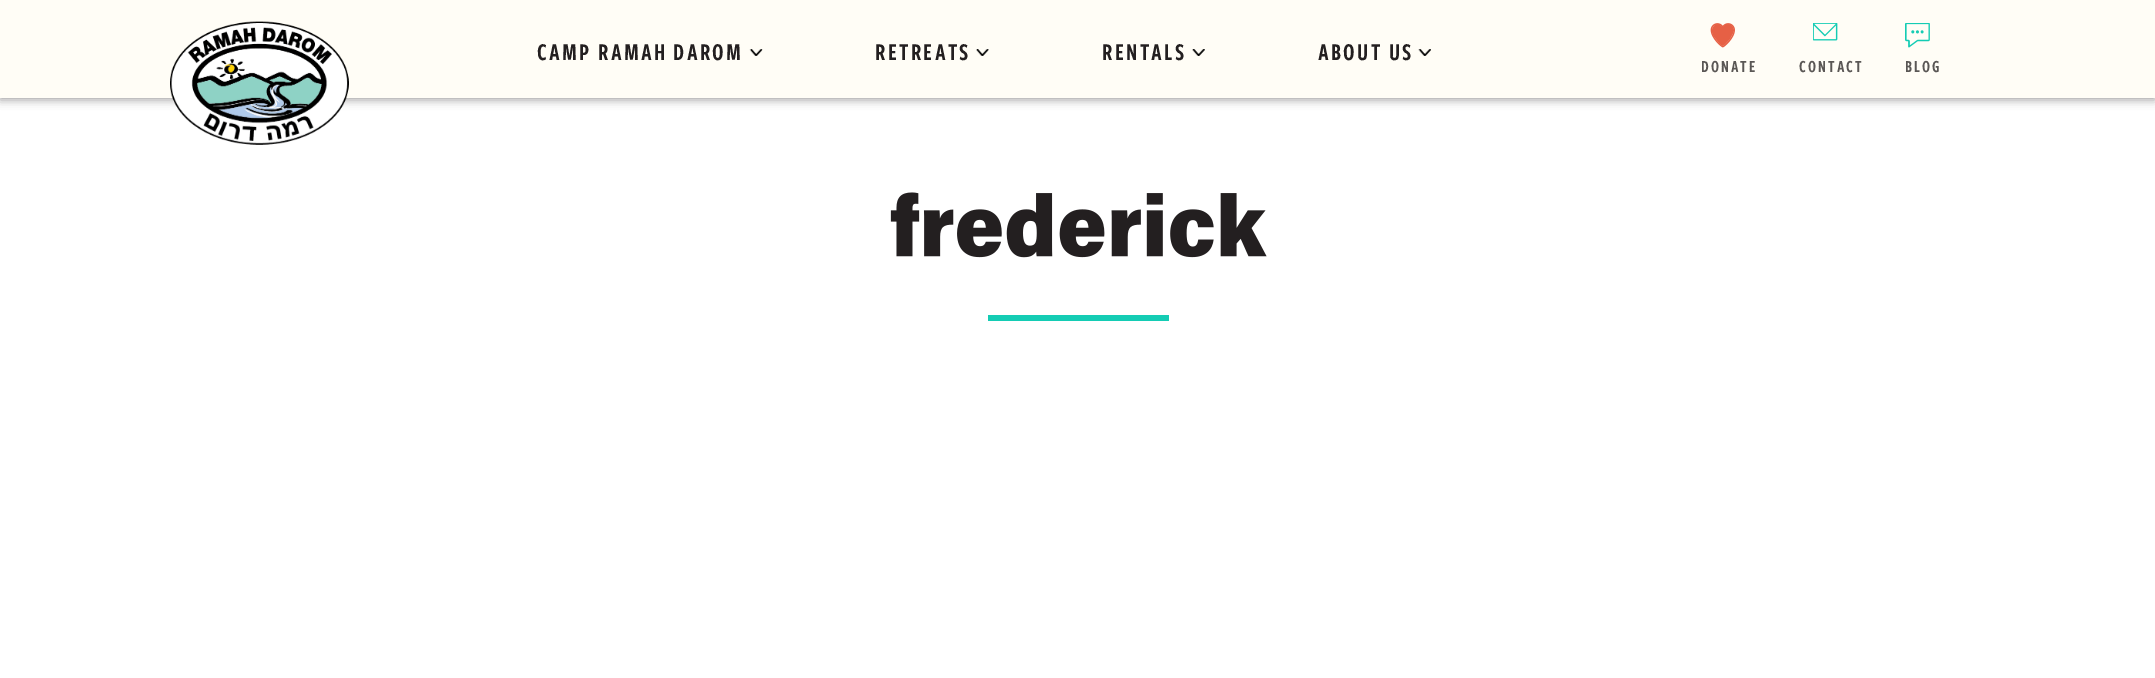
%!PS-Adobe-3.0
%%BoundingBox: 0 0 2155 678
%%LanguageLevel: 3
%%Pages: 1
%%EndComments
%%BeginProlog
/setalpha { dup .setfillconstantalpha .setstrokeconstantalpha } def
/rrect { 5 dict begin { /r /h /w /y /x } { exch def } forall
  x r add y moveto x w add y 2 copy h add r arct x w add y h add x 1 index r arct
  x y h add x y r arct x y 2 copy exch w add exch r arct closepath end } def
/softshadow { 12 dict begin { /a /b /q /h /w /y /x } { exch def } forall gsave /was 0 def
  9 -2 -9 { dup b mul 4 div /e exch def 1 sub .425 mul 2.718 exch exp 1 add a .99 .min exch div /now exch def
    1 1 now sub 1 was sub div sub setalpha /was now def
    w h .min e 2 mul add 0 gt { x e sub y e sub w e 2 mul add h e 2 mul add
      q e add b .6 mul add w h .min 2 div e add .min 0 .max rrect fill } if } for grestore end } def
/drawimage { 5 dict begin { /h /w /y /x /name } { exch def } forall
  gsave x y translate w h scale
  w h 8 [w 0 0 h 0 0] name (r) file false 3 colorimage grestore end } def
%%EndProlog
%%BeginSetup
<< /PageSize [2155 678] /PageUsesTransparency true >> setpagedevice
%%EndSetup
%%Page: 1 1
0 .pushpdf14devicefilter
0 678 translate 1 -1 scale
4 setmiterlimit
1 setgray
0 0 2155 678 rectfill
0.137 0.122 0.125 setrgbcolor
0 3 2155 97 0 4.5 0.41 softshadow
1 0.992 0.965 setrgbcolor
0 0 2155 98 rectfill
(images/1.raw) 170 21 179 124 drawimage
(images/2.raw) 749 49 14 7 drawimage
(images/3.raw) 976 49 13 7 drawimage
(images/4.raw) 1192 49 13 7 drawimage
(images/5.raw) 1418 49 13 7 drawimage
(images/6.raw) 1710 23 25 25 drawimage
(images/7.raw) 1813 23 25 18 drawimage
(images/8.raw) 1905 23 25 25 drawimage
(images/9.raw) 890 192 377 66 drawimage
0.078 0.8 0.706 setrgbcolor
988 315 181 6 rectfill
/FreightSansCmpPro-SemiBold [25 0 0 -25 0 0] selectfont
0.137 0.122 0.125 setrgbcolor
537 60 moveto 2.25 0 (CAMP RAMAH DAROM) ashow
875 60 moveto 2.25 0 (RETREATS) ashow
1102 60 moveto 2.25 0 (RENTALS) ashow
1318 60 moveto 2.25 0 (ABOUT US) ashow
/FreightSansCmpPro-SemiBold [17.5 0 0 -17.5 0 0] selectfont
0.353 0.341 0.333 setrgbcolor
1701 72 moveto 2 0 (DONATE) ashow
1799 72 moveto 2 0 (CONTACT) ashow
1905 72 moveto 2 0 (BLOG) ashow
.poppdf14devicefilter showpage
%%EOF
